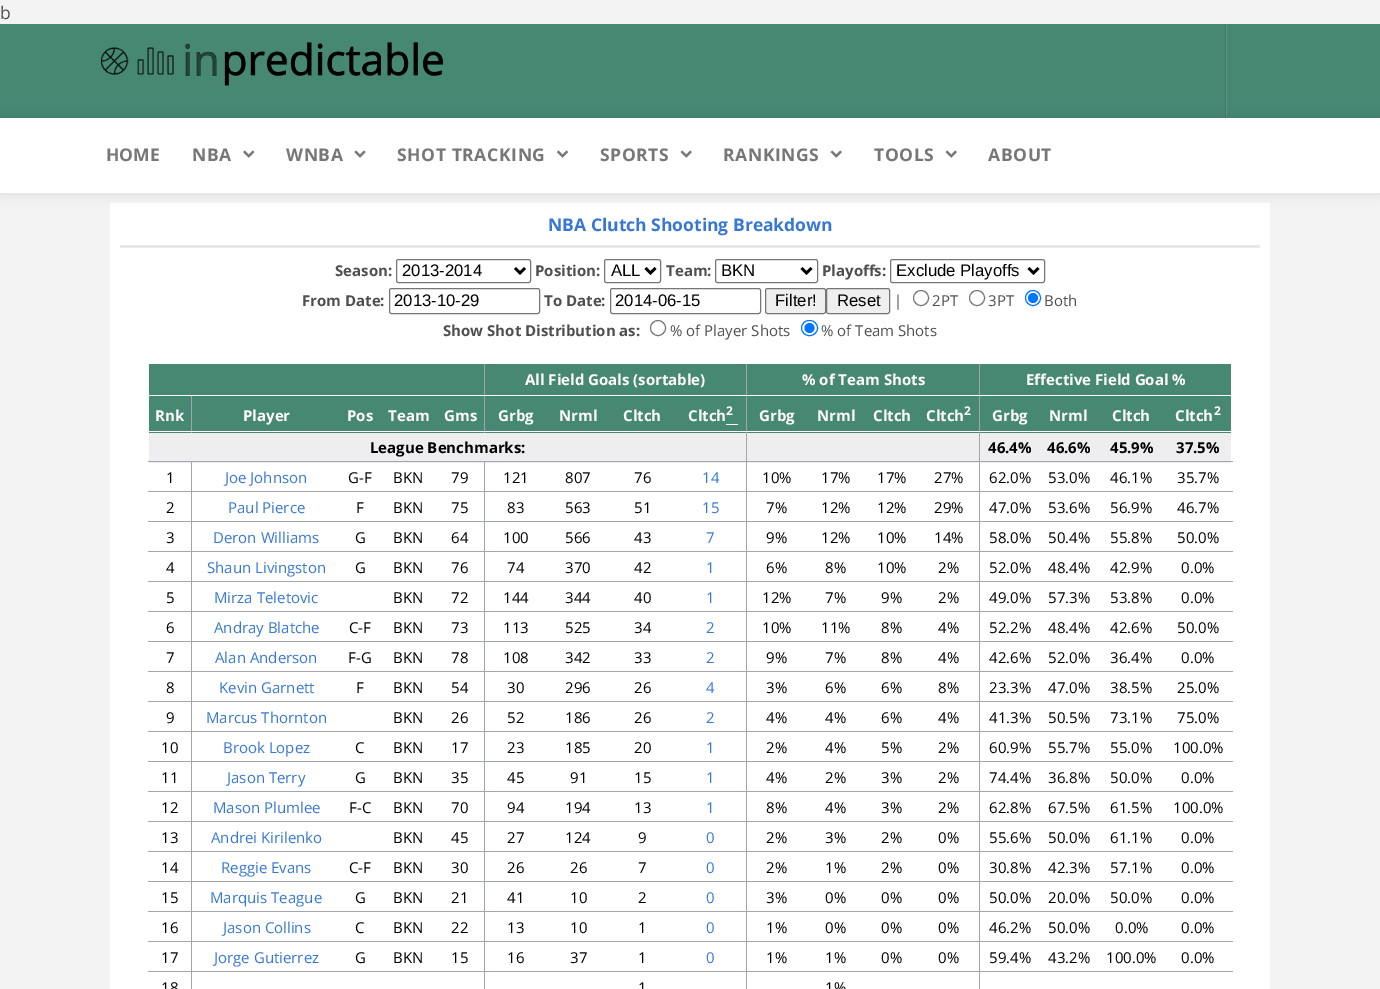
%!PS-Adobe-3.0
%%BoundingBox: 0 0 1380 989
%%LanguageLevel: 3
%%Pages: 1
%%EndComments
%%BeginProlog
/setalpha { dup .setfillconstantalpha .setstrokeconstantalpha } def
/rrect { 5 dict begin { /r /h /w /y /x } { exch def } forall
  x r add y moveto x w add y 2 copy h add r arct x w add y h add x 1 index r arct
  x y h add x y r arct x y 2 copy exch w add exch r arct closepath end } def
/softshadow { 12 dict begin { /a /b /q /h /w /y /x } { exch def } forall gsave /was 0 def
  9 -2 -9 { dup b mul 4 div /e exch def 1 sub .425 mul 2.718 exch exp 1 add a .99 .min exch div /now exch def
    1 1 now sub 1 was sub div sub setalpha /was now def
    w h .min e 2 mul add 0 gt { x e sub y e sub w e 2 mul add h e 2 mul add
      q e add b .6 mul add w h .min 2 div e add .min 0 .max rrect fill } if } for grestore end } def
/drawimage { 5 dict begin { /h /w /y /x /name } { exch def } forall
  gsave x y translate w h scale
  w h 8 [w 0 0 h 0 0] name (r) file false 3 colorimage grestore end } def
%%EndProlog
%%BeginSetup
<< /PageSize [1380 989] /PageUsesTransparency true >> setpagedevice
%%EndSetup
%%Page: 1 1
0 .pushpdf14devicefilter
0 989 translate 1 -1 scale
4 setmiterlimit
0.953 setgray
0 0 1380 989 rectfill
0.278 0.533 0.451 setrgbcolor
0 24 1380 94 rectfill
0.357 0.584 0.51 setrgbcolor
1226 24 1 94 rectfill
0.251 0.478 0.408 setrgbcolor
1225 24 1 94 rectfill
(images/1.raw) 101 42 343 44 drawimage
1 setgray
110 203 1160 786 rectfill
0 setgray
0 118 1380 76 0 6 0.1 softshadow
1 setgray
0 118 1380 75 rectfill
0.902 setgray
0 193 1380 1 rectfill
(images/2.raw) 243 150 12 8 drawimage
(images/3.raw) 354 150 12 8 drawimage
(images/4.raw) 557 150 11 8 drawimage
(images/5.raw) 680 150 12 8 drawimage
(images/5.raw) 830 150 12 8 drawimage
(images/5.raw) 945 150 12 8 drawimage
0.91 setgray
120 245 1140 3 rectfill
0.463 setgray
396.5 259.5 134 23 2 rrect stroke
0 setgray
2.5 setlinewidth
newpath 515 268 moveto 520 273 lineto 525 268 lineto stroke
0.463 setgray
1 setlinewidth
604.5 259.5 56 23 2 rrect stroke
0 setgray
2.5 setlinewidth
newpath 645.5 268 moveto 650.5 273 lineto 655.5 268 lineto stroke
0.463 setgray
1 setlinewidth
715.5 259.5 102 23 2 rrect stroke
0 setgray
2.5 setlinewidth
newpath 801.5 268 moveto 806.5 273 lineto 811.5 268 lineto stroke
0.463 setgray
1 setlinewidth
890.5 259.5 154 23 2 rrect stroke
0 setgray
2.5 setlinewidth
newpath 1028.5 268 moveto 1033.5 273 lineto 1038.5 268 lineto stroke
0.463 setgray
1 setlinewidth
389.5 288.5 150 25 2 rrect stroke
610.5 288.5 150 25 2 rrect stroke
0.937 setgray
765.5 288.5 60 25 2 rrect gsave fill grestore
0.463 setgray
stroke
0.937 setgray
826.5 288.5 63 25 2 rrect gsave fill grestore
0.463 setgray
stroke
newpath 921 298 7.5 0 360 arc closepath stroke
newpath 977 298 7.5 0 360 arc closepath stroke
0 0.459 1 setrgbcolor
newpath 1033 298 7.5 0 360 arc closepath stroke
newpath 1033 298 5 0 360 arc closepath fill
0.463 setgray
newpath 658 328 7.5 0 360 arc closepath stroke
0 0.459 1 setrgbcolor
801.5 320.5 16 15 7.5 rrect stroke
newpath 809.5 328 5 0 360 arc closepath fill
0.278 0.533 0.451 setrgbcolor
149 364 335 31 rectfill
980 396 251 37 rectfill
0.933 setgray
980 433 251 30 rectfill
0.635 0.651 0.698 setrgbcolor
979 971 1 18 rectfill
979 971 254 1 rectfill
979 941 1 32 rectfill
979 941 254 1 rectfill
979 911 1 32 rectfill
979 911 254 1 rectfill
979 881 1 32 rectfill
979 881 254 1 rectfill
979 851 1 32 rectfill
979 851 254 1 rectfill
979 821 1 32 rectfill
979 821 254 1 rectfill
979 791 1 32 rectfill
979 791 254 1 rectfill
979 761 1 32 rectfill
979 761 254 1 rectfill
979 731 1 32 rectfill
979 731 254 1 rectfill
979 701 1 32 rectfill
979 701 254 1 rectfill
979 671 1 32 rectfill
979 671 254 1 rectfill
979 641 1 32 rectfill
979 641 254 1 rectfill
979 611 1 32 rectfill
979 611 254 1 rectfill
979 581 1 32 rectfill
979 581 254 1 rectfill
979 551 1 32 rectfill
979 551 254 1 rectfill
979 521 1 32 rectfill
979 521 254 1 rectfill
979 491 1 32 rectfill
979 491 254 1 rectfill
979 461 1 32 rectfill
979 461 254 1 rectfill
979 431 1 32 rectfill
1 setgray
979 431 254 1 rectfill
0.635 0.651 0.698 setrgbcolor
979 395 1 38 rectfill
1 setgray
979 395 1 1 rectfill
0.635 0.651 0.698 setrgbcolor
979 364 1 32 rectfill
0.278 0.533 0.451 setrgbcolor
747 396 232 37 rectfill
0.933 setgray
747 433 232 30 rectfill
0.635 0.651 0.698 setrgbcolor
746 971 1 18 rectfill
746 971 234 1 rectfill
746 941 1 32 rectfill
746 941 234 1 rectfill
746 911 1 32 rectfill
746 911 234 1 rectfill
746 881 1 32 rectfill
746 881 234 1 rectfill
746 851 1 32 rectfill
746 851 234 1 rectfill
746 821 1 32 rectfill
746 821 234 1 rectfill
746 791 1 32 rectfill
746 791 234 1 rectfill
746 761 1 32 rectfill
746 761 234 1 rectfill
746 731 1 32 rectfill
746 731 234 1 rectfill
746 701 1 32 rectfill
746 701 234 1 rectfill
746 671 1 32 rectfill
746 671 234 1 rectfill
746 641 1 32 rectfill
746 641 234 1 rectfill
746 611 1 32 rectfill
746 611 234 1 rectfill
746 581 1 32 rectfill
746 581 234 1 rectfill
746 551 1 32 rectfill
746 551 234 1 rectfill
746 521 1 32 rectfill
746 521 234 1 rectfill
746 491 1 32 rectfill
746 491 234 1 rectfill
746 461 1 32 rectfill
746 461 234 1 rectfill
746 431 1 32 rectfill
1 setgray
746 431 234 1 rectfill
0.635 0.651 0.698 setrgbcolor
746 395 1 38 rectfill
1 setgray
746 395 234 1 rectfill
0.635 0.651 0.698 setrgbcolor
746 364 1 32 rectfill
0.278 0.533 0.451 setrgbcolor
485 396 261 37 rectfill
1 setgray
484 431 264 1 rectfill
0.635 0.651 0.698 setrgbcolor
484 395 1 38 rectfill
1 setgray
484 395 264 1 rectfill
0.635 0.651 0.698 setrgbcolor
484 364 1 32 rectfill
0.278 0.533 0.451 setrgbcolor
149 396 335 37 rectfill
1 setgray
191 431 294 1 rectfill
0.635 0.651 0.698 setrgbcolor
191 395 1 38 rectfill
1 setgray
191 395 294 1 rectfill
0.278 0.533 0.451 setrgbcolor
485 364 261 31 rectfill
747 364 232 31 rectfill
980 364 251 31 rectfill
1 setgray
148 431 45 1 rectfill
0.278 0.533 0.451 setrgbcolor
493 431 46 1 rectfill
1 setgray
493 431 46 1 rectfill
0.278 0.533 0.451 setrgbcolor
554 431 49 1 rectfill
1 setgray
554 431 49 1 rectfill
0.278 0.533 0.451 setrgbcolor
619 431 47 1 rectfill
1 setgray
619 431 47 1 rectfill
0.278 0.533 0.451 setrgbcolor
683 431 43 1 rectfill
1 setgray
683 431 43 1 rectfill
726 424 12 1 rectfill
0.933 setgray
149 433 597 30 rectfill
0.635 0.651 0.698 setrgbcolor
484 971 1 18 rectfill
484 971 264 1 rectfill
484 941 1 32 rectfill
484 941 264 1 rectfill
484 911 1 32 rectfill
484 911 264 1 rectfill
484 881 1 32 rectfill
484 881 264 1 rectfill
484 851 1 32 rectfill
484 851 264 1 rectfill
484 821 1 32 rectfill
484 821 264 1 rectfill
484 791 1 32 rectfill
484 791 264 1 rectfill
484 761 1 32 rectfill
484 761 264 1 rectfill
484 731 1 32 rectfill
484 731 264 1 rectfill
484 701 1 32 rectfill
484 701 264 1 rectfill
484 671 1 32 rectfill
484 671 264 1 rectfill
484 641 1 32 rectfill
484 641 264 1 rectfill
484 611 1 32 rectfill
484 611 264 1 rectfill
484 581 1 32 rectfill
484 581 264 1 rectfill
484 551 1 32 rectfill
484 551 264 1 rectfill
484 521 1 32 rectfill
484 521 264 1 rectfill
484 491 1 32 rectfill
484 491 264 1 rectfill
484 461 1 32 rectfill
191 971 1 18 rectfill
191 971 294 1 rectfill
191 941 1 32 rectfill
191 941 294 1 rectfill
191 911 1 32 rectfill
191 911 294 1 rectfill
191 881 1 32 rectfill
191 881 294 1 rectfill
191 851 1 32 rectfill
191 851 294 1 rectfill
191 821 1 32 rectfill
191 821 294 1 rectfill
191 791 1 32 rectfill
191 791 294 1 rectfill
191 761 1 32 rectfill
191 761 294 1 rectfill
191 731 1 32 rectfill
191 731 294 1 rectfill
191 701 1 32 rectfill
191 701 294 1 rectfill
191 671 1 32 rectfill
191 671 294 1 rectfill
191 641 1 32 rectfill
191 641 294 1 rectfill
191 611 1 32 rectfill
191 611 294 1 rectfill
191 581 1 32 rectfill
191 581 294 1 rectfill
191 551 1 32 rectfill
191 551 294 1 rectfill
191 521 1 32 rectfill
191 521 294 1 rectfill
191 491 1 32 rectfill
191 491 294 1 rectfill
191 461 1 32 rectfill
148 461 600 1 rectfill
148 491 45 1 rectfill
148 521 45 1 rectfill
148 551 45 1 rectfill
148 581 45 1 rectfill
148 611 45 1 rectfill
148 641 45 1 rectfill
148 671 45 1 rectfill
148 701 45 1 rectfill
148 731 45 1 rectfill
148 761 45 1 rectfill
148 791 45 1 rectfill
148 821 45 1 rectfill
148 851 45 1 rectfill
148 881 45 1 rectfill
148 911 45 1 rectfill
148 941 45 1 rectfill
148 971 45 1 rectfill
/OpenSans-Regular [17.5 0 0 -17.5 0 0] selectfont
0.31 setgray
0 19 moveto (b) show
/OpenSans-Bold [17.5 0 0 -17.5 0 0] selectfont
0.467 setgray
106 161 moveto (HOME) show
192 161 moveto 0.6 0 (NBA) ashow
286 161 moveto 0.6 0 (WNBA) ashow
397 161 moveto 0.6 0 (SHOT TRACKING) ashow
600 161 moveto 0.6 0 (SPORTS) ashow
723 161 moveto 0.6 0 (RANKINGS) ashow
874 161 moveto 0.6 0 (TOOLS) ashow
988 161 moveto 0.6 0 (ABOUT) ashow
0.216 0.471 0.824 setrgbcolor
548 231 moveto (NBA Clutch Shooting Breakdown) show
/OpenSans-Bold [15 0 0 -15 0 0] selectfont
0.31 setgray
335 276 moveto (Season:) show
/LiberationSans-Regular [16.75 0 0 -16.75 0 0] selectfont
0 setgray
402 276 moveto (2013-2014) show
/OpenSans-Bold [15 0 0 -15 0 0] selectfont
0.31 setgray
535 276 moveto (Position:) show
/LiberationSans-Regular [16.75 0 0 -16.75 0 0] selectfont
0 setgray
611 276 moveto (ALL) show
/OpenSans-Bold [15 0 0 -15 0 0] selectfont
0.31 setgray
666 276 moveto (Team:) show
/LiberationSans-Regular [16.75 0 0 -16.75 0 0] selectfont
0 setgray
721 276 moveto (BKN) show
/OpenSans-Bold [15 0 0 -15 0 0] selectfont
0.31 setgray
822 276 moveto (Playoffs:) show
/LiberationSans-Regular [16.75 0 0 -16.75 0 0] selectfont
0 setgray
896 276 moveto (Exclude Playoffs) show
/OpenSans-Bold [15 0 0 -15 0 0] selectfont
0.31 setgray
302 306 moveto (From Date:) show
/LiberationSans-Regular [16.75 0 0 -16.75 0 0] selectfont
0 setgray
394 306 moveto (2013-10-29) show
/OpenSans-Bold [15 0 0 -15 0 0] selectfont
0.31 setgray
544 306 moveto (To Date:) show
/LiberationSans-Regular [16.75 0 0 -16.75 0 0] selectfont
0 setgray
615 306 moveto (2014-06-15) show
775 306 moveto (Filter!) show
837 306 moveto (Reset) show
/OpenSans-Regular [15 0 0 -15 0 0] selectfont
0.31 setgray
894 306 moveto (|) show
932 306 moveto (2PT) show
988 306 moveto (3PT) show
1044 306 moveto (Both) show
/OpenSans-Bold [15 0 0 -15 0 0] selectfont
443 336 moveto (Show Shot Distribution as:) show
/OpenSans-Regular [15 0 0 -15 0 0] selectfont
670 336 moveto (% of Player Shots) show
821 336 moveto (% of Team Shots) show
/OpenSans-Bold [15 0 0 -15 0 0] selectfont
1 setgray
525 385 moveto (All Field Goals \(sortable\)) show
802 385 moveto (% of Team Shots) show
1026 385 moveto (Effective Field Goal %) show
155 421 moveto (Rnk) show
243 421 moveto (Player) show
347 421 moveto (Pos) show
388 421 moveto (Team) show
444 421 moveto (Gms) show
498 421 moveto (Grbg) show
559 421 moveto (Nrml) show
623 421 moveto (Cltch) show
688 421 moveto (Cltch) show
/OpenSans-Bold [12 0 0 -12 0 0] selectfont
726 415 moveto (2) show
/OpenSans-Bold [15 0 0 -15 0 0] selectfont
759 421 moveto (Grbg) show
817 421 moveto (Nrml) show
873 421 moveto (Cltch) show
926 421 moveto (Cltch) show
/OpenSans-Bold [12 0 0 -12 0 0] selectfont
964 415 moveto (2) show
/OpenSans-Bold [15 0 0 -15 0 0] selectfont
992 421 moveto (Grbg) show
1049 421 moveto (Nrml) show
1112 421 moveto (Cltch) show
1175 421 moveto (Cltch) show
/OpenSans-Bold [12 0 0 -12 0 0] selectfont
1214 415 moveto (2) show
/OpenSans-Bold [15 0 0 -15 0 0] selectfont
0 setgray
370 453 moveto (League Benchmarks:) show
988 453 moveto (46.4%) show
1047 453 moveto (46.6%) show
1110 453 moveto (45.9%) show
1176 453 moveto (37.5%) show
/OpenSans-Regular [15 0 0 -15 0 0] selectfont
166 483 moveto (1) show
0.216 0.471 0.824 setrgbcolor
225 483 moveto (Joe Johnson) show
0 setgray
348 483 moveto (G-F) show
393 483 moveto (BKN) show
451 483 moveto (79) show
503 483 moveto (121) show
565 483 moveto (807) show
634 483 moveto (76) show
0.216 0.471 0.824 setrgbcolor
702 483 moveto (14) show
0 setgray
762 483 moveto (10%) show
821 483 moveto (17%) show
877 483 moveto (17%) show
934 483 moveto (27%) show
989 483 moveto (62.0%) show
1048 483 moveto (53.0%) show
1110 483 moveto (46.1%) show
1177 483 moveto (35.7%) show
166 513 moveto (2) show
0.216 0.471 0.824 setrgbcolor
228 513 moveto (Paul Pierce) show
0 setgray
356 513 moveto (F) show
393 513 moveto (BKN) show
451 513 moveto (75) show
507 513 moveto (83) show
565 513 moveto (563) show
634 513 moveto (51) show
0.216 0.471 0.824 setrgbcolor
702 513 moveto (15) show
0 setgray
766 513 moveto (7%) show
821 513 moveto (12%) show
877 513 moveto (12%) show
934 513 moveto (29%) show
989 513 moveto (47.0%) show
1048 513 moveto (53.6%) show
1110 513 moveto (56.9%) show
1177 513 moveto (46.7%) show
166 543 moveto (3) show
0.216 0.471 0.824 setrgbcolor
213 543 moveto (Deron Williams) show
0 setgray
355 543 moveto (G) show
393 543 moveto (BKN) show
451 543 moveto (64) show
503 543 moveto (100) show
565 543 moveto (566) show
634 543 moveto (43) show
0.216 0.471 0.824 setrgbcolor
706 543 moveto (7) show
0 setgray
766 543 moveto (9%) show
821 543 moveto (12%) show
877 543 moveto (10%) show
934 543 moveto (14%) show
989 543 moveto (58.0%) show
1048 543 moveto (50.4%) show
1110 543 moveto (55.8%) show
1177 543 moveto (50.0%) show
166 573 moveto (4) show
0.216 0.471 0.824 setrgbcolor
207 573 moveto (Shaun Livingston) show
0 setgray
355 573 moveto (G) show
393 573 moveto (BKN) show
451 573 moveto (76) show
507 573 moveto (74) show
565 573 moveto (370) show
634 573 moveto (42) show
0.216 0.471 0.824 setrgbcolor
706 573 moveto (1) show
0 setgray
766 573 moveto (6%) show
825 573 moveto (8%) show
877 573 moveto (10%) show
938 573 moveto (2%) show
989 573 moveto (52.0%) show
1048 573 moveto (48.4%) show
1110 573 moveto (42.9%) show
1181 573 moveto (0.0%) show
166 603 moveto (5) show
0.216 0.471 0.824 setrgbcolor
214 603 moveto (Mirza Teletovic) show
0 setgray
393 603 moveto (BKN) show
451 603 moveto (72) show
503 603 moveto (144) show
565 603 moveto (344) show
634 603 moveto (40) show
0.216 0.471 0.824 setrgbcolor
706 603 moveto (1) show
0 setgray
762 603 moveto (12%) show
825 603 moveto (7%) show
881 603 moveto (9%) show
938 603 moveto (2%) show
989 603 moveto (49.0%) show
1048 603 moveto (57.3%) show
1110 603 moveto (53.8%) show
1181 603 moveto (0.0%) show
166 633 moveto (6) show
0.216 0.471 0.824 setrgbcolor
214 633 moveto (Andray Blatche) show
0 setgray
349 633 moveto (C-F) show
393 633 moveto (BKN) show
451 633 moveto (73) show
503 633 moveto (113) show
565 633 moveto (525) show
634 633 moveto (34) show
0.216 0.471 0.824 setrgbcolor
706 633 moveto (2) show
0 setgray
762 633 moveto (10%) show
821 633 moveto (11%) show
881 633 moveto (8%) show
938 633 moveto (4%) show
989 633 moveto (52.2%) show
1048 633 moveto (48.4%) show
1110 633 moveto (42.6%) show
1177 633 moveto (50.0%) show
166 663 moveto (7) show
0.216 0.471 0.824 setrgbcolor
215 663 moveto (Alan Anderson) show
0 setgray
348 663 moveto (F-G) show
393 663 moveto (BKN) show
451 663 moveto (78) show
503 663 moveto (108) show
565 663 moveto (342) show
634 663 moveto (33) show
0.216 0.471 0.824 setrgbcolor
706 663 moveto (2) show
0 setgray
766 663 moveto (9%) show
825 663 moveto (7%) show
881 663 moveto (8%) show
938 663 moveto (4%) show
989 663 moveto (42.6%) show
1048 663 moveto (52.0%) show
1110 663 moveto (36.4%) show
1181 663 moveto (0.0%) show
166 693 moveto (8) show
0.216 0.471 0.824 setrgbcolor
219 693 moveto (Kevin Garnett) show
0 setgray
356 693 moveto (F) show
393 693 moveto (BKN) show
451 693 moveto (54) show
507 693 moveto (30) show
565 693 moveto (296) show
634 693 moveto (26) show
0.216 0.471 0.824 setrgbcolor
706 693 moveto (4) show
0 setgray
766 693 moveto (3%) show
825 693 moveto (6%) show
881 693 moveto (6%) show
938 693 moveto (8%) show
989 693 moveto (23.3%) show
1048 693 moveto (47.0%) show
1110 693 moveto (38.5%) show
1177 693 moveto (25.0%) show
166 723 moveto (9) show
0.216 0.471 0.824 setrgbcolor
206 723 moveto (Marcus Thornton) show
0 setgray
393 723 moveto (BKN) show
451 723 moveto (26) show
507 723 moveto (52) show
565 723 moveto (186) show
634 723 moveto (26) show
0.216 0.471 0.824 setrgbcolor
706 723 moveto (2) show
0 setgray
766 723 moveto (4%) show
825 723 moveto (4%) show
881 723 moveto (6%) show
938 723 moveto (4%) show
989 723 moveto (41.3%) show
1048 723 moveto (50.5%) show
1110 723 moveto (73.1%) show
1177 723 moveto (75.0%) show
161 753 moveto (10) show
0.216 0.471 0.824 setrgbcolor
223 753 moveto (Brook Lopez) show
0 setgray
355 753 moveto (C) show
393 753 moveto (BKN) show
451 753 moveto (17) show
507 753 moveto (23) show
565 753 moveto (185) show
634 753 moveto (20) show
0.216 0.471 0.824 setrgbcolor
706 753 moveto (1) show
0 setgray
766 753 moveto (2%) show
825 753 moveto (4%) show
881 753 moveto (5%) show
938 753 moveto (2%) show
989 753 moveto (60.9%) show
1048 753 moveto (55.7%) show
1110 753 moveto (55.0%) show
1173 753 moveto (100.0%) show
161 783 moveto (11) show
0.216 0.471 0.824 setrgbcolor
227 783 moveto (Jason Terry) show
0 setgray
355 783 moveto (G) show
393 783 moveto (BKN) show
451 783 moveto (35) show
507 783 moveto (45) show
570 783 moveto (91) show
634 783 moveto (15) show
0.216 0.471 0.824 setrgbcolor
706 783 moveto (1) show
0 setgray
766 783 moveto (4%) show
825 783 moveto (2%) show
881 783 moveto (3%) show
938 783 moveto (2%) show
989 783 moveto (74.4%) show
1048 783 moveto (36.8%) show
1110 783 moveto (50.0%) show
1181 783 moveto (0.0%) show
161 813 moveto (12) show
0.216 0.471 0.824 setrgbcolor
213 813 moveto (Mason Plumlee) show
0 setgray
349 813 moveto (F-C) show
393 813 moveto (BKN) show
451 813 moveto (70) show
507 813 moveto (94) show
565 813 moveto (194) show
634 813 moveto (13) show
0.216 0.471 0.824 setrgbcolor
706 813 moveto (1) show
0 setgray
766 813 moveto (8%) show
825 813 moveto (4%) show
881 813 moveto (3%) show
938 813 moveto (2%) show
989 813 moveto (62.8%) show
1048 813 moveto (67.5%) show
1110 813 moveto (61.5%) show
1173 813 moveto (100.0%) show
161 843 moveto (13) show
0.216 0.471 0.824 setrgbcolor
211 843 moveto (Andrei Kirilenko) show
0 setgray
393 843 moveto (BKN) show
451 843 moveto (45) show
507 843 moveto (27) show
565 843 moveto (124) show
638 843 moveto (9) show
0.216 0.471 0.824 setrgbcolor
706 843 moveto (0) show
0 setgray
766 843 moveto (2%) show
825 843 moveto (3%) show
881 843 moveto (2%) show
938 843 moveto (0%) show
989 843 moveto (55.6%) show
1048 843 moveto (50.0%) show
1110 843 moveto (61.1%) show
1181 843 moveto (0.0%) show
161 873 moveto (14) show
0.216 0.471 0.824 setrgbcolor
221 873 moveto (Reggie Evans) show
0 setgray
349 873 moveto (C-F) show
393 873 moveto (BKN) show
451 873 moveto (30) show
507 873 moveto (26) show
570 873 moveto (26) show
638 873 moveto (7) show
0.216 0.471 0.824 setrgbcolor
706 873 moveto (0) show
0 setgray
766 873 moveto (2%) show
825 873 moveto (1%) show
881 873 moveto (2%) show
938 873 moveto (0%) show
989 873 moveto (30.8%) show
1048 873 moveto (42.3%) show
1110 873 moveto (57.1%) show
1181 873 moveto (0.0%) show
161 903 moveto (15) show
0.216 0.471 0.824 setrgbcolor
210 903 moveto (Marquis Teague) show
0 setgray
355 903 moveto (G) show
393 903 moveto (BKN) show
451 903 moveto (21) show
507 903 moveto (41) show
570 903 moveto (10) show
638 903 moveto (2) show
0.216 0.471 0.824 setrgbcolor
706 903 moveto (0) show
0 setgray
766 903 moveto (3%) show
825 903 moveto (0%) show
881 903 moveto (0%) show
938 903 moveto (0%) show
989 903 moveto (50.0%) show
1048 903 moveto (20.0%) show
1110 903 moveto (50.0%) show
1181 903 moveto (0.0%) show
161 933 moveto (16) show
0.216 0.471 0.824 setrgbcolor
223 933 moveto (Jason Collins) show
0 setgray
355 933 moveto (C) show
393 933 moveto (BKN) show
451 933 moveto (22) show
507 933 moveto (13) show
570 933 moveto (10) show
638 933 moveto (1) show
0.216 0.471 0.824 setrgbcolor
706 933 moveto (0) show
0 setgray
766 933 moveto (1%) show
825 933 moveto (0%) show
881 933 moveto (0%) show
938 933 moveto (0%) show
989 933 moveto (46.2%) show
1048 933 moveto (50.0%) show
1115 933 moveto (0.0%) show
1181 933 moveto (0.0%) show
161 963 moveto (17) show
0.216 0.471 0.824 setrgbcolor
214 963 moveto (Jorge Gutierrez) show
0 setgray
355 963 moveto (G) show
393 963 moveto (BKN) show
451 963 moveto (15) show
507 963 moveto (16) show
570 963 moveto (37) show
638 963 moveto (1) show
0.216 0.471 0.824 setrgbcolor
706 963 moveto (0) show
0 setgray
766 963 moveto (1%) show
825 963 moveto (1%) show
881 963 moveto (0%) show
938 963 moveto (0%) show
989 963 moveto (59.4%) show
1048 963 moveto (43.2%) show
1106 963 moveto (100.0%) show
1181 963 moveto (0.0%) show
161 993 moveto (18) show
638 993 moveto (1) show
825 993 moveto (1%) show
.poppdf14devicefilter showpage
%%EOF
